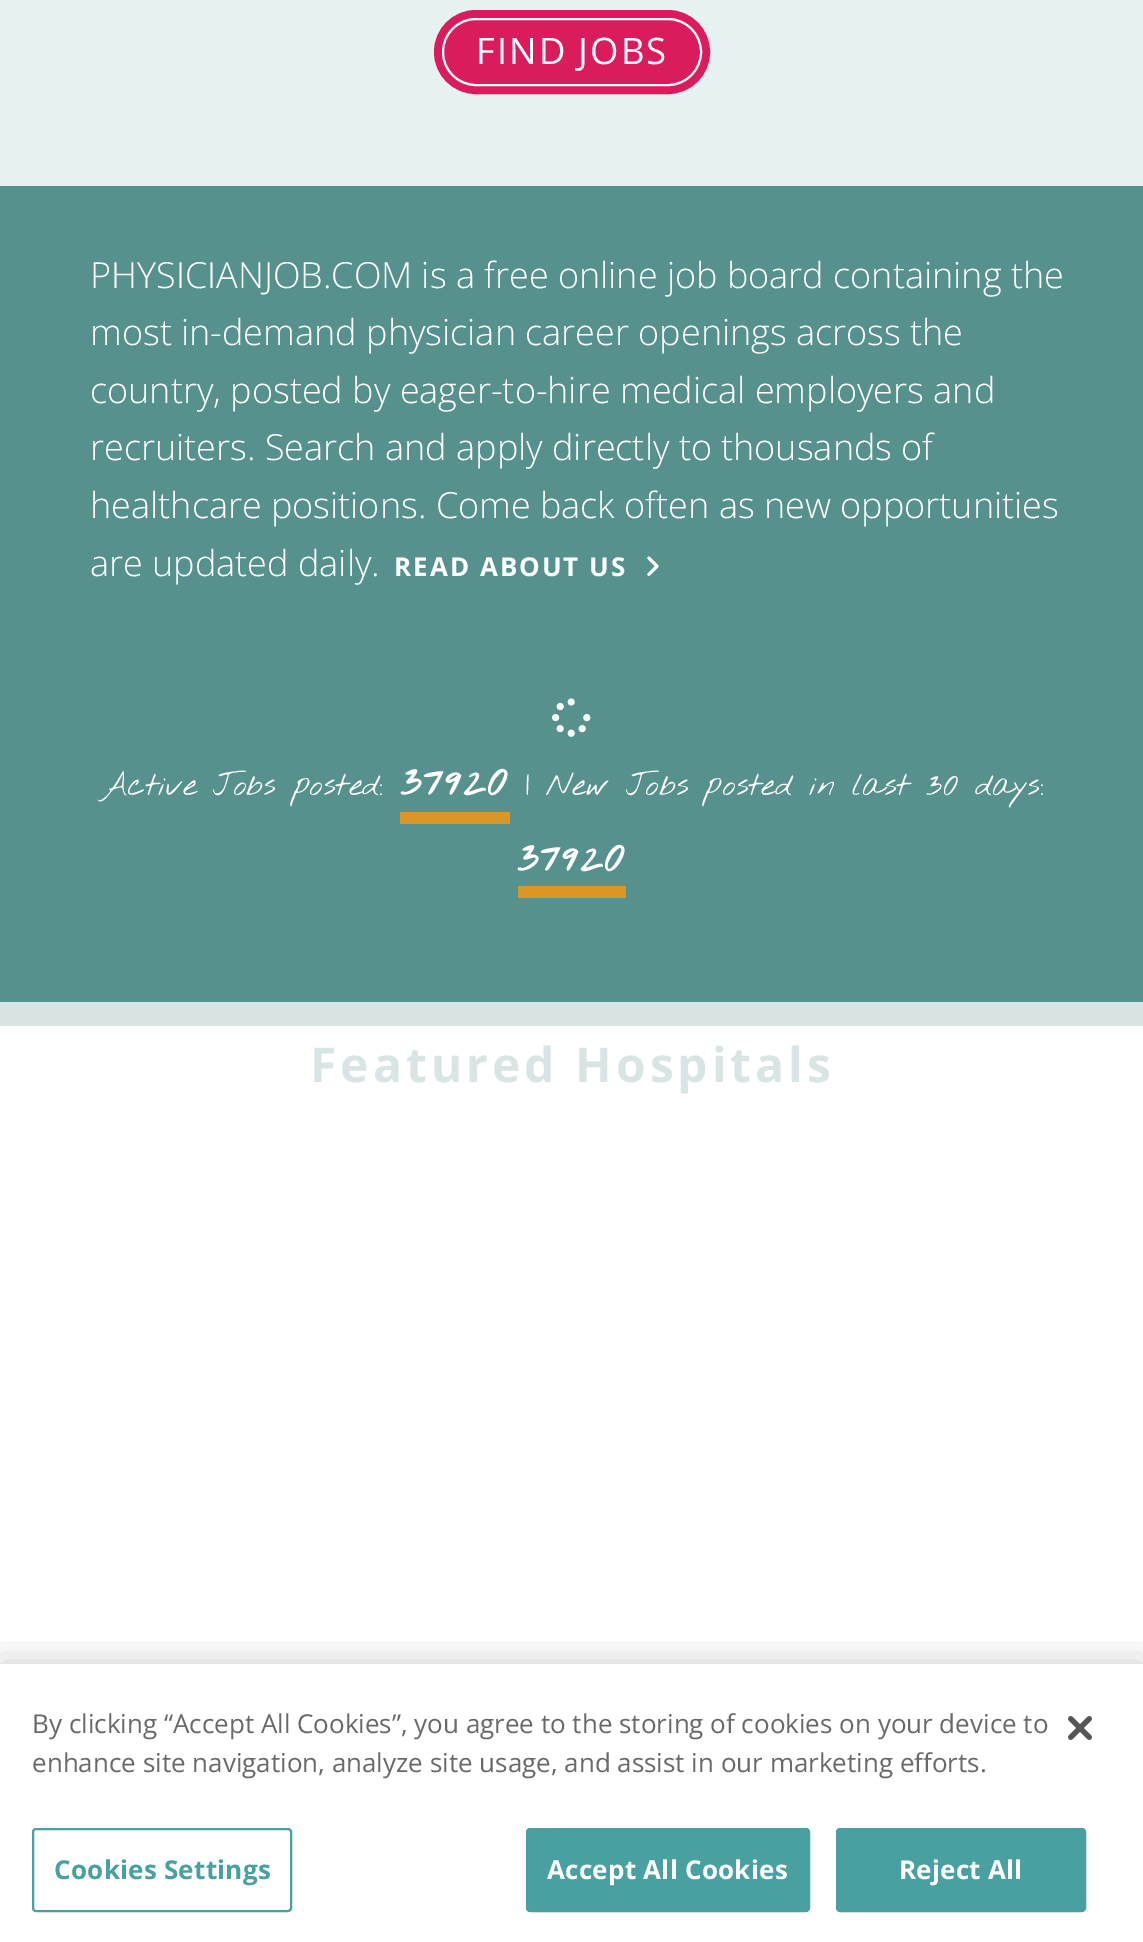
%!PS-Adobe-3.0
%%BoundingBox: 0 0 1143 1942
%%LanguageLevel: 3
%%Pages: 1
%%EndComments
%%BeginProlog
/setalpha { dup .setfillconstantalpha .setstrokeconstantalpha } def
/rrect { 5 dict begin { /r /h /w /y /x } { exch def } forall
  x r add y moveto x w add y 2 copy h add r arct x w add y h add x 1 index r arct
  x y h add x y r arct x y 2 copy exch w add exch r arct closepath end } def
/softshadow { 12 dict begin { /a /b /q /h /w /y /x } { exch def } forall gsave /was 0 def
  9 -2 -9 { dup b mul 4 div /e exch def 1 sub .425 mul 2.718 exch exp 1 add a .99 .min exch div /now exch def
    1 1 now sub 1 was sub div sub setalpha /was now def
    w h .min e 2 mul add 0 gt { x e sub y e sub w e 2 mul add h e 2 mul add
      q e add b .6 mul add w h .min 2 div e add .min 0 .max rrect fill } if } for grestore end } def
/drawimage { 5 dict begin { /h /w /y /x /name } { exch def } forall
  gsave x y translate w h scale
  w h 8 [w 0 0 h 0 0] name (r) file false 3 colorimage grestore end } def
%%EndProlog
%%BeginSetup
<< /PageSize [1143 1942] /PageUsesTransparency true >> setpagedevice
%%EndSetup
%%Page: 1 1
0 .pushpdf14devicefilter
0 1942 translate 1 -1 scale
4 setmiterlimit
1 setgray
0 0 1143 1942 rectfill
0.902 0.949 0.949 setrgbcolor
0 0 1143 186 rectfill
0.855 0.11 0.361 setrgbcolor
8 setlinewidth
438 14 268 76 38 rrect stroke
gsave
442 18 260 68 34 rrect clip newpath
442 20 260 64 rectfill
grestore
1 setgray
2 setlinewidth
443 19 258 66 33 rrect stroke
0.341 0.569 0.557 setrgbcolor
0 186 1143 816 rectfill
(images/1.raw) 647 556 12 20 drawimage
(images/2.raw) 552 698 39 39 drawimage
0.851 0.592 0.153 setrgbcolor
400 812 110 12 rectfill
518 886 108 12 rectfill
0.851 0.894 0.894 setrgbcolor
0 1002 1143 24 rectfill
gsave
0 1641 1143 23 rectclip
0 setgray
0 1664 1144 278 0 18 0.2 softshadow
grestore
0.282 0.627 0.627 setrgbcolor
33 1829 258 82 3 rrect stroke
527 1829 282 82 3 rrect gsave fill grestore
stroke
837 1829 248 82 3 rrect gsave fill grestore
stroke
(images/3.raw) 1068 1716 24 24 drawimage
/OpenSans-Regular [36.5 0 0 -36.5 0 0] selectfont
1 setgray
476 64 moveto 2 0 (FIND JOBS) ashow
/OpenSans-Light [36 0 0 -36 0 0] selectfont
90 288 moveto (PHYSICIANJOB.COM is a free online job board containing the) show
90 345 moveto (most in-demand physician career openings across the) show
90 403 moveto (country, posted by eager-to-hire medical employers and) show
90 460 moveto (recruiters. Search and apply directly to thousands of) show
90 518 moveto (healthcare positions. Come back often as new opportunities) show
90 576 moveto (are updated daily.) show
/OpenSans-Bold [26 0 0 -26 0 0] selectfont
394 576 moveto 2 0 (READ ABOUT US) ashow
/NothingYouCouldDo-Thin [32 0 0 -32 0 0] selectfont
101 795 moveto (Active Jobs posted:) show
/NothingYouCouldDo-Bold [42 0 0 -42 0 0] selectfont
400 795 moveto 2 0 (37920) ashow
/NothingYouCouldDo-Thin [32 0 0 -32 0 0] selectfont
526 795 moveto (| New Jobs posted in last 30 days:) show
/NothingYouCouldDo-Bold [42 0 0 -42 0 0] selectfont
517 871 moveto 2 0 (37920) ashow
/OpenSans-Bold [48 0 0 -48 0 0] selectfont
0.851 0.894 0.894 setrgbcolor
310 1082 moveto 4 0 (Featured Hospitals) ashow
/OpenSans-Regular [26 0 0 -26 0 0] selectfont
0.412 setgray
32 1733 moveto (By clicking “Accept All Cookies”, you agree to the storing of cookies on your device to) show
32 1772 moveto (enhance site navigation, analyze site usage, and assist in our marketing efforts.) show
/OpenSans-Bold [26 0 0 -26 0 0] selectfont
0.282 0.627 0.627 setrgbcolor
54 1879 moveto 0.25 0 (Cookies Settings) ashow
1 setgray
547 1879 moveto 0.25 0 (Accept All Cookies) ashow
899 1879 moveto 0.25 0 (Reject All) ashow
.poppdf14devicefilter showpage
%%EOF
